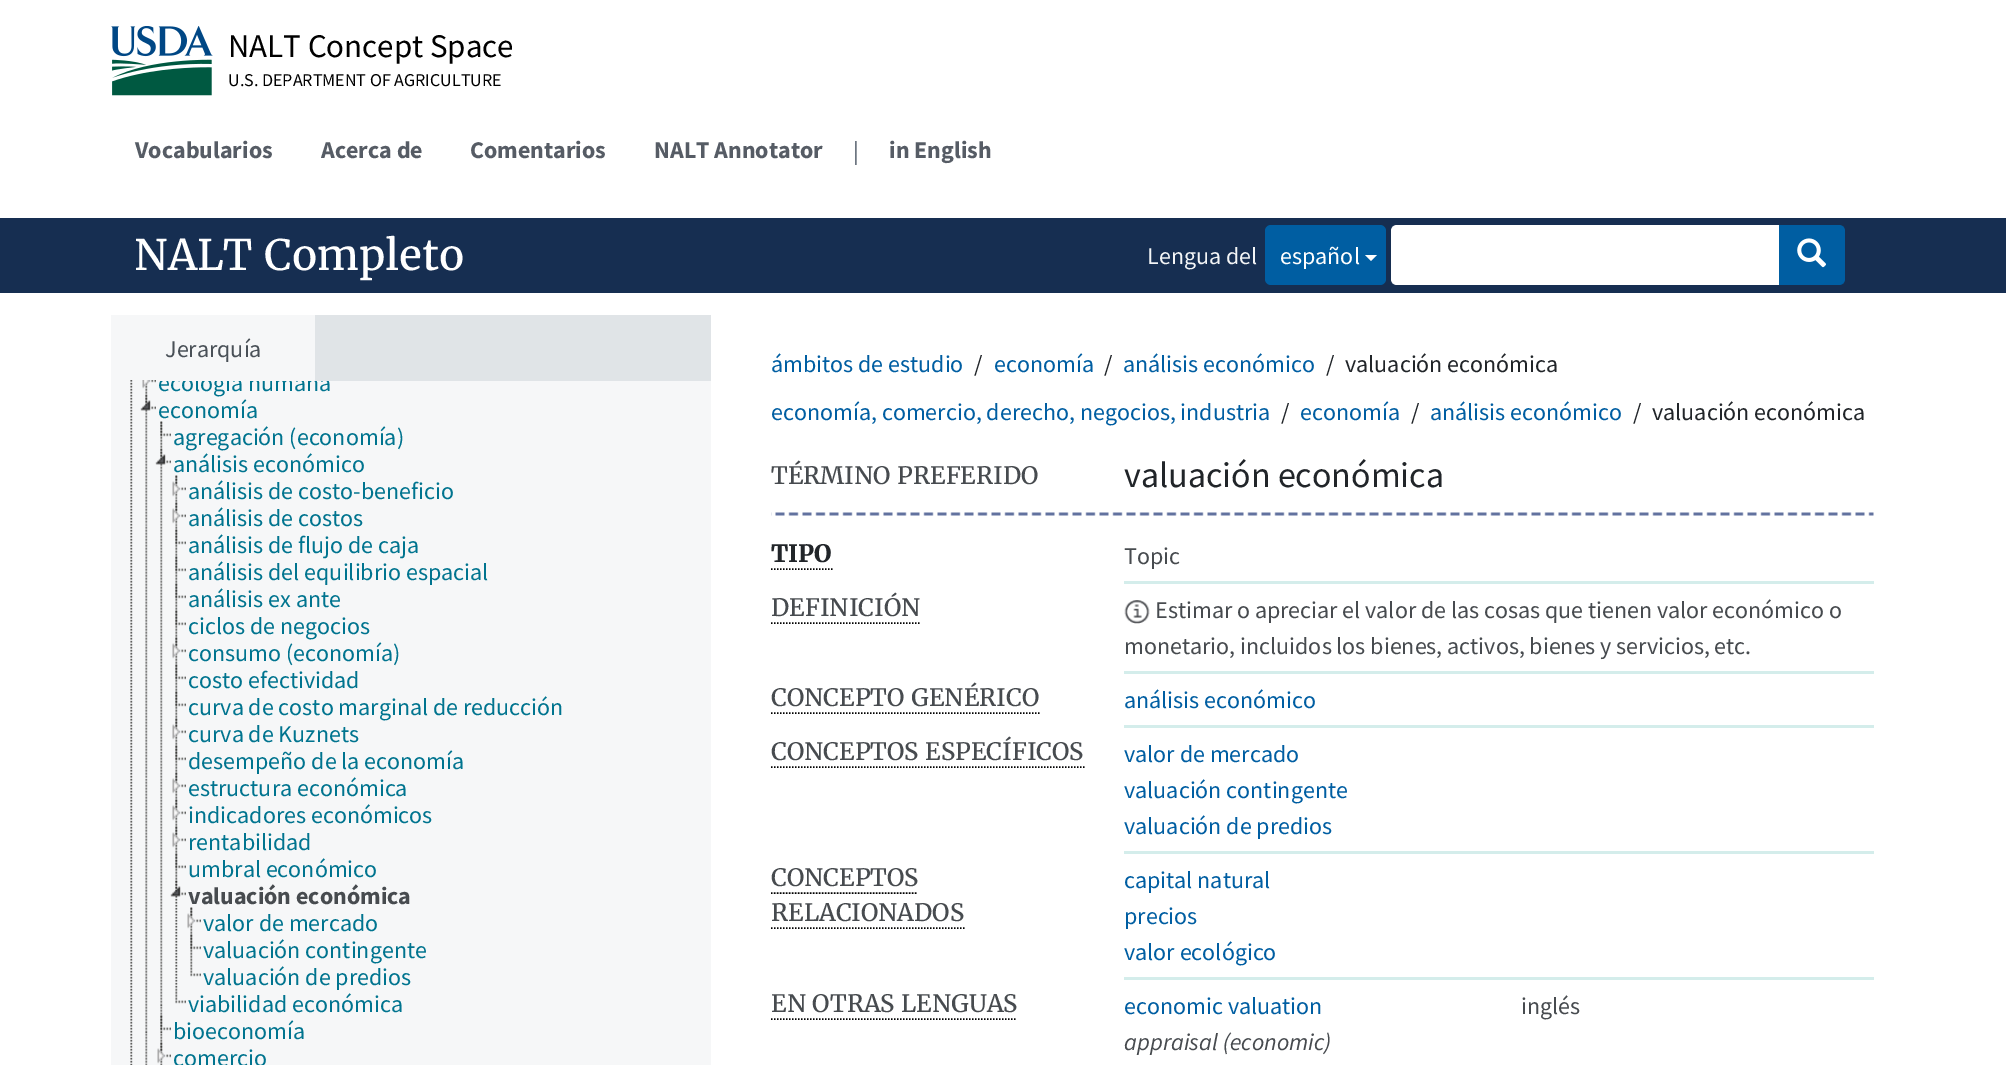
%!PS-Adobe-3.0
%%BoundingBox: 0 0 2006 1065
%%LanguageLevel: 3
%%Pages: 1
%%EndComments
%%BeginProlog
/rrect { 5 dict begin { /r /h /w /y /x } { exch def } forall
  x r add y moveto x w add y 2 copy h add r arct x w add y h add x 1 index r arct
  x y h add x y r arct x y 2 copy exch w add exch r arct closepath end } def
/drawimage { 5 dict begin { /h /w /y /x /name } { exch def } forall
  gsave x y translate w h scale
  w h 8 [w 0 0 h 0 0] name (r) file false 3 colorimage grestore end } def
%%EndProlog
%%BeginSetup
<< /PageSize [2006 1065] >> setpagedevice
%%EndSetup
%%Page: 1 1
0 1065 translate 1 -1 scale
4 setmiterlimit
1 setgray
0 0 2006 1065 rectfill
(images/1.raw) 111 26 102 70 drawimage
0.086 0.18 0.318 setrgbcolor
0 218 2006 75 rectfill
0 0.369 0.635 setrgbcolor
1265 225 121 60 6 rrect fill
1 setgray
newpath 1365 255 moveto 1377 255 lineto 1371 261 lineto closepath fill
newpath 1397 225 moveto 1781 225 lineto 1781 285 lineto 1397 285 lineto 1393.5 285 1391 282.5 1391 279 curveto 1391 231 lineto 1391 227.5 1393.5 225 1397 225 curveto closepath fill
0 0.369 0.635 setrgbcolor
newpath 1779 225 moveto 1839 225 lineto 1842.5 225 1845 227.5 1845 231 curveto 1845 279 lineto 1845 282.5 1842.5 285 1839 285 curveto 1779 285 lineto closepath fill
(images/2.raw) 1797 238 29 30 drawimage
0.878 0.894 0.906 setrgbcolor
315 315 396 66 rectfill
0.965 0.969 0.973 setrgbcolor
111 315 204 66 rectfill
111 381 600 684 rectfill
(images/3.raw) 130 380 3 685 drawimage
(images/4.raw) 145 382 3 13 drawimage
(images/5.raw) 142 380 14 9 drawimage
(images/6.raw) 145 394 3 671 drawimage
(images/7.raw) 140 394 16 17 drawimage
(images/8.raw) 160 421 3 28 drawimage
(images/9.raw) 160 421 11 16 drawimage
(images/10.raw) 160 448 3 569 drawimage
(images/7.raw) 155 448 16 17 drawimage
(images/11.raw) 175 475 3 28 drawimage
(images/12.raw) 172 475 14 22 drawimage
(images/13.raw) 175 502 3 28 drawimage
(images/14.raw) 172 502 14 22 drawimage
(images/15.raw) 175 529 3 28 drawimage
(images/16.raw) 175 529 11 16 drawimage
(images/15.raw) 175 556 3 28 drawimage
(images/16.raw) 175 556 11 16 drawimage
(images/15.raw) 175 583 3 28 drawimage
(images/16.raw) 175 583 11 16 drawimage
(images/15.raw) 175 610 3 28 drawimage
(images/16.raw) 175 610 11 16 drawimage
(images/15.raw) 175 637 3 28 drawimage
(images/14.raw) 172 637 14 22 drawimage
(images/15.raw) 175 664 3 28 drawimage
(images/16.raw) 175 664 11 16 drawimage
(images/15.raw) 175 691 3 28 drawimage
(images/16.raw) 175 691 11 16 drawimage
(images/15.raw) 175 718 3 28 drawimage
(images/14.raw) 172 718 14 22 drawimage
(images/15.raw) 175 745 3 28 drawimage
(images/16.raw) 175 745 11 16 drawimage
(images/15.raw) 175 772 3 28 drawimage
(images/14.raw) 172 772 14 22 drawimage
(images/15.raw) 175 799 3 28 drawimage
(images/14.raw) 172 799 14 22 drawimage
(images/15.raw) 175 826 3 28 drawimage
(images/14.raw) 172 826 14 22 drawimage
(images/17.raw) 175 853 3 28 drawimage
(images/18.raw) 175 853 11 16 drawimage
(images/19.raw) 175 880 3 108 drawimage
(images/20.raw) 170 880 16 17 drawimage
(images/8.raw) 190 907 3 28 drawimage
(images/12.raw) 187 907 14 22 drawimage
(images/15.raw) 190 934 3 28 drawimage
(images/16.raw) 190 934 11 16 drawimage
(images/21.raw) 190 961 11 16 drawimage
(images/22.raw) 175 988 11 16 drawimage
(images/23.raw) 160 1015 3 28 drawimage
(images/24.raw) 160 1015 11 16 drawimage
(images/25.raw) 160 1042 3 23 drawimage
(images/14.raw) 157 1042 14 22 drawimage
(images/26.raw) 771 512 1103 4 drawimage
0 setgray
1.5 setlinewidth
[1.5 1.5] 0 setdash
newpath 771 569 moveto 832.5 569 lineto stroke
0.831 0.929 0.922 setrgbcolor
1124 581 750 3 rectfill
0 setgray
newpath 771 623 moveto 921 623 lineto stroke
0.831 0.929 0.922 setrgbcolor
1124 671 750 3 rectfill
(images/27.raw) 1124 600 26 24 drawimage
0 setgray
newpath 771 713 moveto 1039.5 713 lineto stroke
0.831 0.929 0.922 setrgbcolor
1124 725 750 3 rectfill
0 setgray
newpath 771 767 moveto 1084.5 767 lineto stroke
0.831 0.929 0.922 setrgbcolor
1124 851 750 3 rectfill
0 setgray
newpath 771 893 moveto 918 893 lineto stroke
newpath 771 928 moveto 964.5 928 lineto stroke
0.831 0.929 0.922 setrgbcolor
1124 977 750 3 rectfill
0 setgray
newpath 771 1019 moveto 1017 1019 lineto stroke
/SourceSansPro-Regular [33 0 0 -33 0 0] selectfont
228 57 moveto (NALT Concept Space) show
/SourceSansPro-Regular [18 0 0 -18 0 0] selectfont
228 86 moveto (U.S. DEPARTMENT OF AGRICULTURE) show
/SourceSansPro-Bold [24 0 0 -24 0 0] selectfont
0.337 0.361 0.396 setrgbcolor
135 158 moveto (Vocabularios) show
321 158 moveto (Acerca de) show
470 158 moveto (Comentarios) show
654 158 moveto (NALT Annotator) show
/SourceSansPro-Regular [24 0 0 -24 0 0] selectfont
0.224 0.271 0.329 setrgbcolor
853 159 moveto (|) show
/SourceSansPro-Bold [24 0 0 -24 0 0] selectfont
0.337 0.361 0.396 setrgbcolor
889 158 moveto (in English) show
/Merriweather-Regular [42 0 0 -42 0 0] selectfont
1 setgray
134 270 moveto (NALT Completo) show
/SourceSansPro-Regular [24 0 0 -24 0 0] selectfont
0.953 0.961 0.965 setrgbcolor
1147 264 moveto (Lengua del) show
1 setgray
1280 264 moveto (español) show
0.286 0.314 0.341 setrgbcolor
165 357 moveto (Jerarquía) show
gsave
111 381 600 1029 rectclip
0 0.455 0.561 setrgbcolor
158 391 moveto (ecología humana) show
grestore
0 0.455 0.561 setrgbcolor
158 418 moveto (economía) show
173 445 moveto (agregación \(economía\)) show
173 472 moveto (análisis económico) show
188 499 moveto (análisis de costo-beneficio) show
188 526 moveto (análisis de costos) show
188 553 moveto (análisis de flujo de caja) show
188 580 moveto (análisis del equilibrio espacial) show
188 607 moveto (análisis ex ante) show
188 634 moveto (ciclos de negocios) show
188 661 moveto (consumo \(economía\)) show
188 688 moveto (costo efectividad) show
188 715 moveto (curva de costo marginal de reducción) show
188 742 moveto (curva de Kuznets) show
188 769 moveto (desempeño de la economía) show
188 796 moveto (estructura económica) show
188 823 moveto (indicadores económicos) show
188 850 moveto (rentabilidad) show
188 877 moveto (umbral económico) show
/SourceSansPro-Bold [24 0 0 -24 0 0] selectfont
0.278 0.294 0.31 setrgbcolor
188 904 moveto (valuación económica) show
/SourceSansPro-Regular [24 0 0 -24 0 0] selectfont
0 0.455 0.561 setrgbcolor
203 931 moveto (valor de mercado) show
203 958 moveto (valuación contingente) show
203 985 moveto (valuación de predios) show
188 1012 moveto (viabilidad económica) show
173 1039 moveto (bioeconomía) show
173 1066 moveto (comercio) show
0 0.369 0.635 setrgbcolor
771 372 moveto (ámbitos de estudio) show
0.129 0.145 0.161 setrgbcolor
974 372 moveto (/) show
0 0.369 0.635 setrgbcolor
994 372 moveto (economía) show
0.129 0.145 0.161 setrgbcolor
1104 372 moveto (/) show
0 0.369 0.635 setrgbcolor
1123 372 moveto (análisis económico) show
0.129 0.145 0.161 setrgbcolor
1326 372 moveto (/) show
1345 372 moveto (valuación económica) show
0 0.369 0.635 setrgbcolor
771 420 moveto (economía, comercio, derecho, negocios, industria) show
0.129 0.145 0.161 setrgbcolor
1281 420 moveto (/) show
0 0.369 0.635 setrgbcolor
1300 420 moveto (economía) show
0.129 0.145 0.161 setrgbcolor
1411 420 moveto (/) show
0 0.369 0.635 setrgbcolor
1430 420 moveto (análisis económico) show
0.129 0.145 0.161 setrgbcolor
1633 420 moveto (/) show
1652 420 moveto (valuación económica) show
/Merriweather-Regular [24 0 0 -24 0 0] selectfont
0.278 0.294 0.31 setrgbcolor
771 484 moveto (TÉRMINO PREFERIDO) show
/SourceSansPro-Regular [36 0 0 -36 0 0] selectfont
0.129 0.145 0.161 setrgbcolor
1124 487 moveto (valuación económica) show
/Merriweather-Bold [24 0 0 -24 0 0] selectfont
771 562 moveto (TIPO) show
/SourceSansPro-Regular [24 0 0 -24 0 0] selectfont
0.278 0.294 0.31 setrgbcolor
1124 564 moveto (Topic) show
/Merriweather-Regular [24 0 0 -24 0 0] selectfont
771 616 moveto (DEFINICIÓN) show
/SourceSansPro-Regular [24 0 0 -24 0 0] selectfont
1155 618 moveto (Estimar o apreciar el valor de las cosas que tienen valor económico o) show
1124 654 moveto (monetario, incluidos los bienes, activos, bienes y servicios, etc.) show
/Merriweather-Regular [24 0 0 -24 0 0] selectfont
771 706 moveto (CONCEPTO GENÉRICO) show
/SourceSansPro-Regular [24 0 0 -24 0 0] selectfont
0 0.369 0.635 setrgbcolor
1124 708 moveto (análisis económico) show
/Merriweather-Regular [24 0 0 -24 0 0] selectfont
0.278 0.294 0.31 setrgbcolor
771 760 moveto (CONCEPTOS ESPECÍFICOS) show
/SourceSansPro-Regular [24 0 0 -24 0 0] selectfont
0 0.369 0.635 setrgbcolor
1124 762 moveto (valor de mercado) show
1124 798 moveto (valuación contingente) show
1124 834 moveto (valuación de predios) show
/Merriweather-Regular [24 0 0 -24 0 0] selectfont
0.278 0.294 0.31 setrgbcolor
771 886 moveto (CONCEPTOS) show
771 921 moveto (RELACIONADOS) show
/SourceSansPro-Regular [24 0 0 -24 0 0] selectfont
0 0.369 0.635 setrgbcolor
1124 888 moveto (capital natural) show
1124 924 moveto (precios) show
1124 960 moveto (valor ecológico) show
/Merriweather-Regular [24 0 0 -24 0 0] selectfont
0.278 0.294 0.31 setrgbcolor
771 1012 moveto (EN OTRAS LENGUAS) show
/SourceSansPro-Regular [24 0 0 -24 0 0] selectfont
0 0.369 0.635 setrgbcolor
1124 1014 moveto (economic valuation) show
0.278 0.294 0.31 setrgbcolor
1521 1014 moveto (inglés) show
/SourceSansPro-Italic [24 0 0 -24 0 0] selectfont
1124 1050 moveto (appraisal \(economic\)) show
showpage
%%EOF
